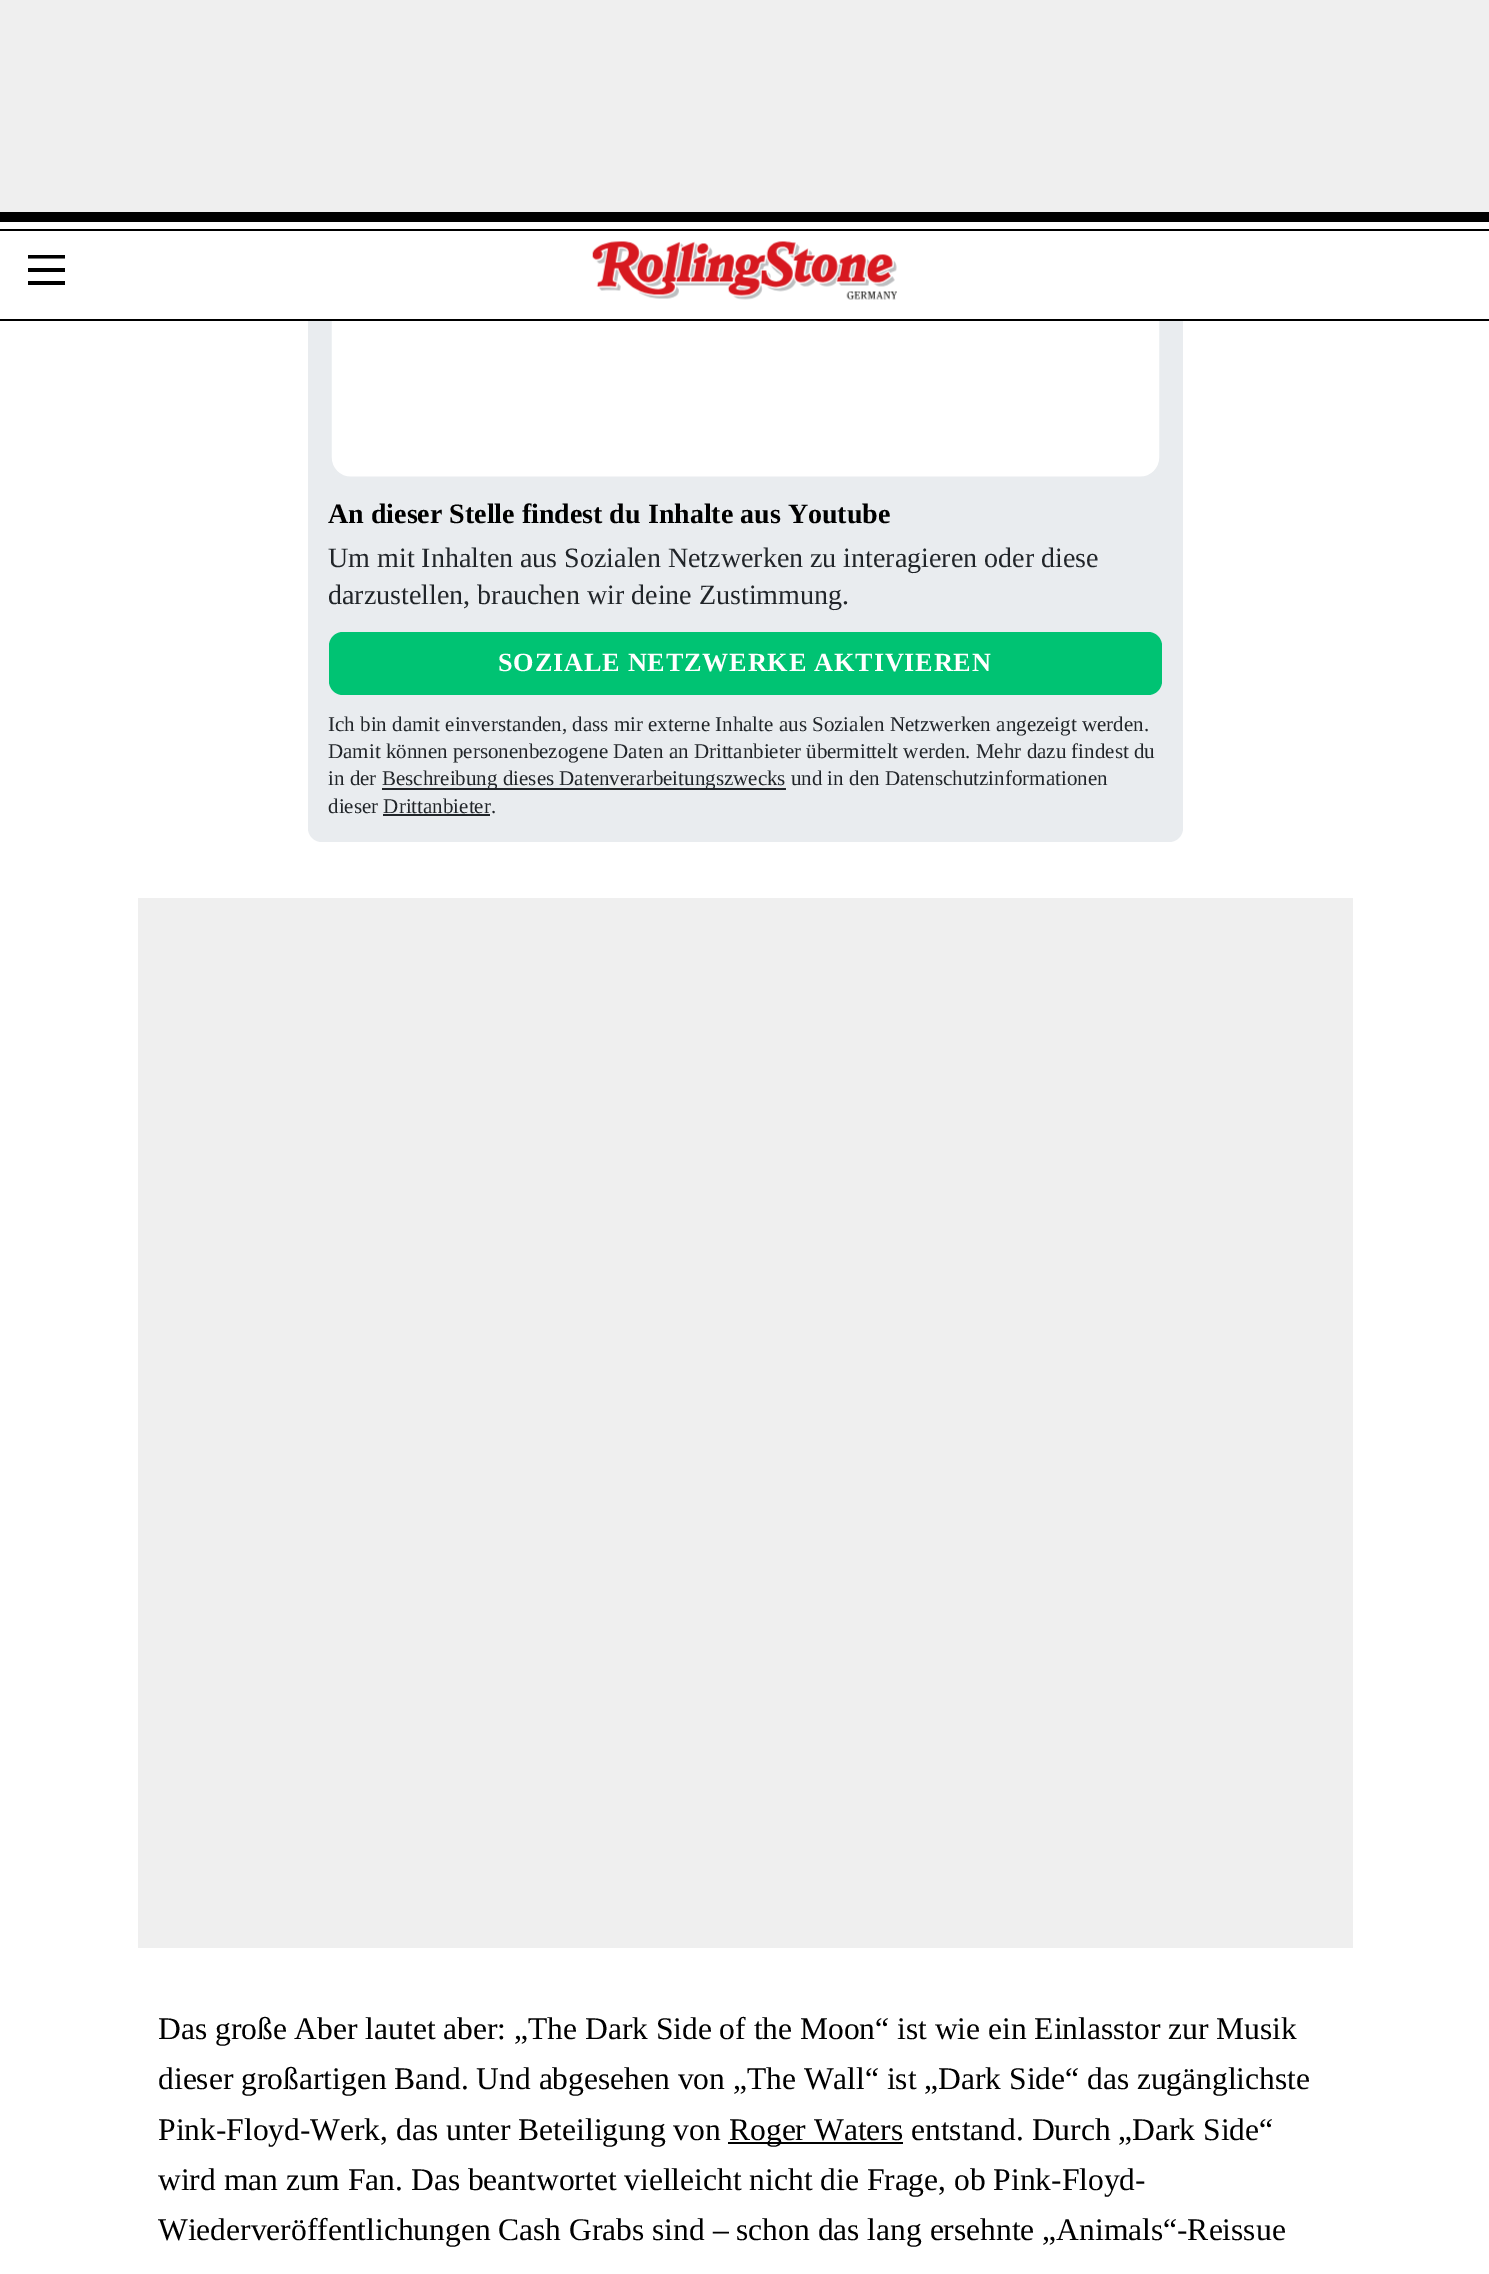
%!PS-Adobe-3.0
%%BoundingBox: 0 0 1489 2274
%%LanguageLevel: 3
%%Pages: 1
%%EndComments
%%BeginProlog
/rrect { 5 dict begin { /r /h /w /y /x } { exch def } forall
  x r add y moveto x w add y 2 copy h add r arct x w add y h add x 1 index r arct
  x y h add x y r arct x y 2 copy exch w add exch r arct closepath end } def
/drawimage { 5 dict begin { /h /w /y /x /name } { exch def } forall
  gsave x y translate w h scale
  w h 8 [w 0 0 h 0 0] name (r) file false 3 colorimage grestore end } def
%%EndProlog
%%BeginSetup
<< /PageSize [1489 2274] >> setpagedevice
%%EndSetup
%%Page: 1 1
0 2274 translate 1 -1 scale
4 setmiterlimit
1 setgray
0 0 1489 2274 rectfill
0.914 0.925 0.937 setrgbcolor
308 -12 875 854 14 rrect fill
0.937 setgray
0 0 1489 212 rectfill
1 setgray
308 222 875 97 rectfill
0 setgray
0 212 1489 10 rectfill
0 319 1489 2 rectfill
0 229 1489 2 rectfill
newpath 28 255 moveto 65 255 lineto 65 258.5 lineto 28 258.5 lineto closepath 28 268 moveto 65 268 lineto 65 272 lineto 28 272 lineto closepath 65 281 moveto 65 285 lineto 28 285 lineto 28 281 lineto closepath fill
(images/1.raw) 592 241 305 59 drawimage
(images/2.raw) 331 321 829 156 drawimage
0 0.765 0.451 setrgbcolor
329 632 833 63 14 rrect fill
0.129 0.145 0.161 setrgbcolor
382 788 404 2 rectfill
383 814 107 2 rectfill
0.937 setgray
138 898 1215 1050 rectfill
0 setgray
728 2142 175 2 rectfill
/LiberationSerif-Bold [28 0 0 -28 0 0] selectfont
328 523 moveto (An dieser Stelle findest du Inhalte aus Youtube) show
/LiberationSerif-Regular [28 0 0 -28 0 0] selectfont
0.129 0.145 0.161 setrgbcolor
328 567 moveto (Um mit Inhalten aus Sozialen Netzwerken zu interagieren oder diese) show
328 604 moveto (darzustellen, brauchen wir deine Zustimmung.) show
/LiberationSerif-Bold [26.25 0 0 -26.25 0 0] selectfont
1 setgray
498 671 moveto 0.8 0 (SOZIALE NETZWERKE AKTIVIEREN) ashow
/LiberationSerif-Regular [21 0 0 -21 0 0] selectfont
0.129 0.145 0.161 setrgbcolor
328 731 moveto (Ich bin damit einverstanden, dass mir externe Inhalte aus Sozialen Netzwerken angezeigt werden.) show
328 758 moveto (Damit können personenbezogene Daten an Drittanbieter übermittelt werden. Mehr dazu findest du) show
328 785 moveto (in der) show
382 785 moveto (Beschreibung dieses Datenverarbeitungszwecks und in den Datenschutzinformationen) show
328 813 moveto (dieser Drittanbieter.) show
/LiberationSerif-Regular [31.5 0 0 -31.5 0 0] selectfont
0 setgray
158 2039 moveto (Das große Aber lautet aber: „The Dark Side of the Moon“ ist wie ein Einlasstor zur Musik) show
158 2089 moveto (dieser großartigen Band. Und abgesehen von „The Wall“ ist „Dark Side“ das zugänglichste) show
158 2140 moveto (Pink-Floyd-Werk, das unter Beteiligung von) show
729 2140 moveto (Roger Waters entstand. Durch „Dark Side“) show
158 2190 moveto (wird man zum Fan. Das beantwortet vielleicht nicht die Frage, ob Pink-Floyd-) show
158 2240 moveto (Wiederveröffentlichungen Cash Grabs sind – schon das lang ersehnte „Animals“-Reissue) show
showpage
%%EOF
